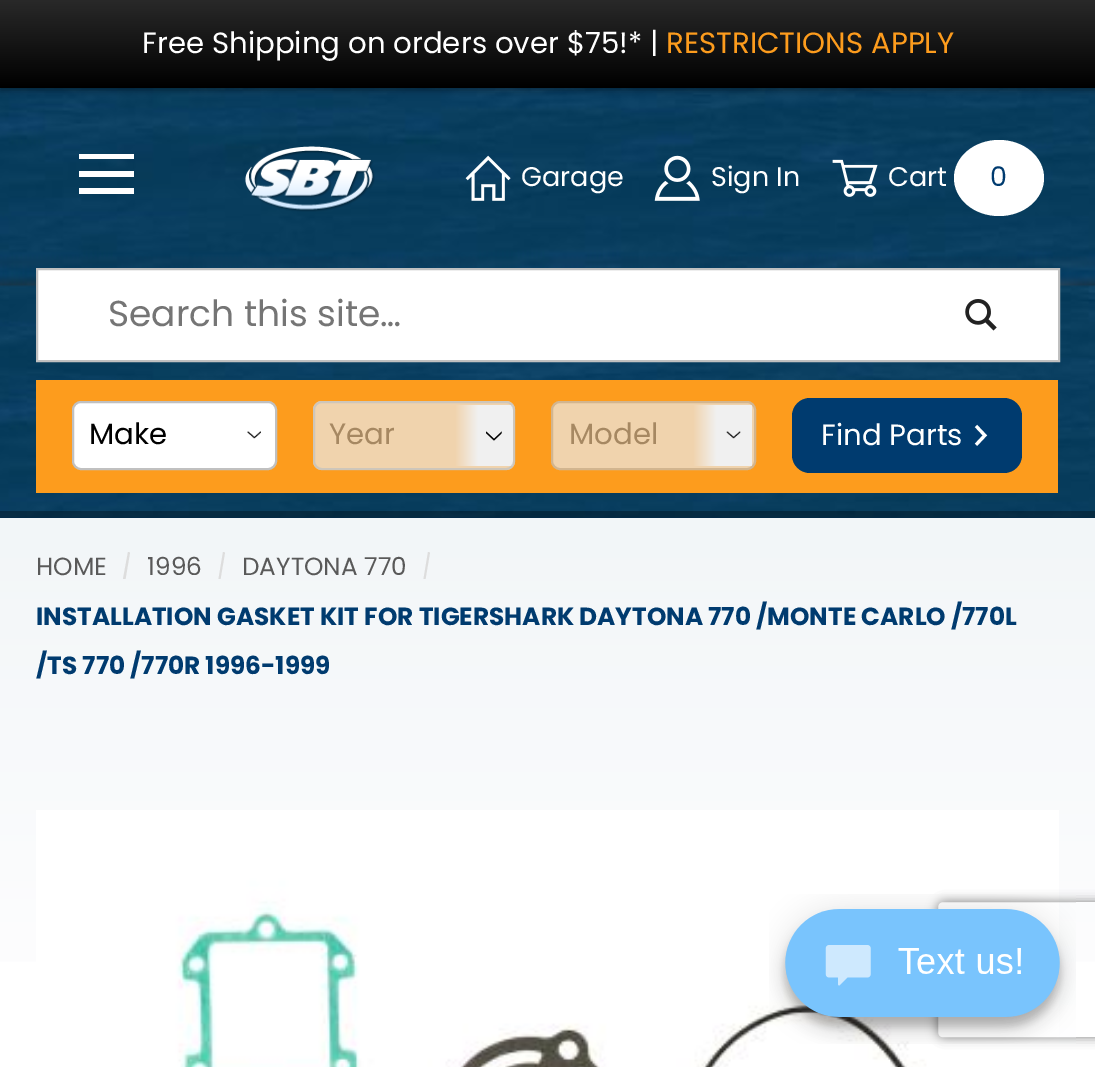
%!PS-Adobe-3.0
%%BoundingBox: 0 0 1095 1067
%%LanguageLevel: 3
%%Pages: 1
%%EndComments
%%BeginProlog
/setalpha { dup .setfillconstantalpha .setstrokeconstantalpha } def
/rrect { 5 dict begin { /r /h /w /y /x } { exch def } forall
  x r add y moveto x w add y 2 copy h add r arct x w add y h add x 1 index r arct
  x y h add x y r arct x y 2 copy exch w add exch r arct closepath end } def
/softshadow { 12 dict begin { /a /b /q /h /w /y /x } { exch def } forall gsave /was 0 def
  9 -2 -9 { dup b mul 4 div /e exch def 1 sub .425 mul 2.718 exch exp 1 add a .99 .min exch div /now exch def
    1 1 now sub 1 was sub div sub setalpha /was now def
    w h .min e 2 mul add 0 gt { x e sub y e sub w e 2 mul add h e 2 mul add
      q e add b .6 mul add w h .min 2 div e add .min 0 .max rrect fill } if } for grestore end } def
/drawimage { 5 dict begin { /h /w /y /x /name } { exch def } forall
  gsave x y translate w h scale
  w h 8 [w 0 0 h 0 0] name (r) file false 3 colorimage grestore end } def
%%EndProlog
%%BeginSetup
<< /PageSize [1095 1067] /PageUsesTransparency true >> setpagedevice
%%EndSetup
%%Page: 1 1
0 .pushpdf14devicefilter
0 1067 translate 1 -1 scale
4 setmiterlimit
1 setgray
0 0 1095 1067 rectfill
gsave newpath 0 518 moveto 1095 518 lineto 1095 962 lineto 0 962 lineto closepath clip newpath
<< /ShadingType 2 /ColorSpace /DeviceRGB /Coords [548 0 548 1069] /Extend [true true] /Function << /FunctionType 2 /Domain [0 1] /C0 [0.902 0.929 0.949] /C1 [1 1 1] /N 1 >> >> shfill grestore
0 0.231 0.435 setrgbcolor
0 517 1095 1 rectfill
(images/1.raw) 0 88 1095 430 drawimage
0.3 setalpha
0 setgray
0 511 1095 7 rectfill
1 setalpha
0 2 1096 88 0 3.5 0.4 softshadow
gsave newpath 0 0 moveto 1095 0 lineto 1095 88 lineto 0 88 lineto closepath clip newpath
<< /ShadingType 2 /ColorSpace /DeviceRGB /Coords [548 0 548 88] /Extend [true true] /Function << /FunctionType 2 /Domain [0 1] /C0 [0.161 0.161 0.161] /C1 [0 0 0] /N 1 >> >> shfill grestore
1 setgray
newpath 79 188 moveto 79 194 lineto 134 194 lineto 134 188 lineto closepath 79 171 moveto 79 177 lineto 134 177 lineto 134 171 lineto closepath 79 154 moveto 79 159 lineto 134 159 lineto 134 154 lineto closepath fill
(images/2.raw) 245 146 130 66 drawimage
(images/3.raw) 465 155 46 46 drawimage
(images/4.raw) 654 155 46 46 drawimage
(images/5.raw) 832 159 46 38 drawimage
newpath 999 140 moveto 1024 140 1044 157 1044 178 curveto 1044 199 1024 216 999 216 curveto 974 216 954 199 954 178 curveto 954 157 974 140 999 140 curveto closepath fill
newpath 37 269 moveto 1059 269 lineto 1059 361 lineto 37 361 lineto closepath gsave fill grestore
0.753 setgray
2 setlinewidth
stroke
(images/6.raw) 965 299 32 32 drawimage
0.992 0.612 0.114 setrgbcolor
36 380 1022 113 rectfill
1 setgray
73 402 203 67 8 rrect gsave fill grestore
0.753 setgray
stroke
(images/7.raw) 247 431 14 8 drawimage
gsave newpath 455 405 moveto 510 405 lineto 511.5 405 513 406.5 513 408 curveto 513 463 lineto 513 464.5 511.5 466 510 466 curveto 455 466 lineto closepath clip newpath
<< /ShadingType 2 /ColorSpace /DeviceRGB /Coords [513 435 455 435] /Extend [true true] /Function << /FunctionType 3 /Domain [0 1] /Functions [<< /FunctionType 2 /Domain [0 1] /C0 [1 1 1] /C1 [1 1 1] /N 1 >> << /FunctionType 2 /Domain [0 1] /C0 [1 1 1] /C1 [0.992 0.612 0.114] /N 1 >>] /Bounds [0.6] /Encode [0 1 0 1] >> >> shfill grestore
0.7 setalpha
0.918 setgray
313 401 202 69 9 rrect fill
0.753 setgray
314 402 200 67 8 rrect stroke
1 setalpha
(images/8.raw) 486 431 16 10 drawimage
gsave newpath 693 405 moveto 749 405 lineto 750.5 405 752 406.5 752 408 curveto 752 463 lineto 752 464.5 750.5 466 749 466 curveto 693 466 lineto closepath clip newpath
<< /ShadingType 2 /ColorSpace /DeviceRGB /Coords [752 435 693 435] /Extend [true true] /Function << /FunctionType 3 /Domain [0 1] /Functions [<< /FunctionType 2 /Domain [0 1] /C0 [1 1 1] /C1 [1 1 1] /N 1 >> << /FunctionType 2 /Domain [0 1] /C0 [1 1 1] /C1 [0.992 0.612 0.114] /N 1 >>] /Bounds [0.6] /Encode [0 1 0 1] >> >> shfill grestore
0.7 setalpha
0.918 setgray
552 402 203 67 8 rrect fill
1 setalpha
0.824 0.71 0.561 setrgbcolor
552 402 203 67 8 rrect stroke
(images/9.raw) 726 431 15 8 drawimage
0 0.231 0.435 setrgbcolor
792 398 230 75 18 rrect fill
0.867 setgray
newpath 128 552 moveto 130 552.5 lineto 125.5 579 lineto 123 579 lineto closepath fill
newpath 223 552 moveto 225 552.5 lineto 220.5 579 lineto 218.5 579 lineto closepath fill
newpath 428 552 moveto 430 552.5 lineto 425.5 579 lineto 423.5 579 lineto closepath fill
(images/10.raw) 36 810 1023 257 drawimage
gsave
newpath 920 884 moveto 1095 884 lineto 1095 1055 lineto 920 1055 lineto closepath 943 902 moveto 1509 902 lineto 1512 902 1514 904 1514 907 curveto 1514 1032 lineto 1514 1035 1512 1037 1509 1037 curveto 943 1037 lineto 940 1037 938 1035 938 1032 curveto 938 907 lineto 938 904 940 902 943 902 curveto closepath eoclip newpath
0.502 setgray
938 902 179 135 5 5.5 1 softshadow
grestore
(images/11.raw) 769 894 307 150 drawimage
/Poppins-Regular [29.25 0 0 -29.25 0 0] selectfont
1 setgray
142 53 moveto (Free Shipping on orders over $75!* |) show
0.992 0.612 0.114 setrgbcolor
666 53 moveto (RESTRICTIONS APPLY) show
/Poppins-Regular [27 0 0 -27 0 0] selectfont
1 setgray
521 186 moveto (Garage) show
711 186 moveto (Sign In) show
888 186 moveto (Cart) show
0 0.231 0.435 setrgbcolor
990 186 moveto (0) show
/Poppins-Regular [36 0 0 -36 0 0] selectfont
0.459 setgray
108 326 moveto (Search this site…) show
/Poppins-Regular [29.25 0 0 -29.25 0 0] selectfont
0 setgray
89 444 moveto (Make) show
0.651 0.533 0.384 setrgbcolor
329 444 moveto (Year) show
569 444 moveto (Model) show
1 setgray
821 445 moveto (Find Parts) show
/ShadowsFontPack-Regular [22 0 0 -22 0 0] selectfont
970 445 moveto (3) show
/Poppins-Regular [24.75 0 0 -24.75 0 0] selectfont
0.349 setgray
36 575 moveto (HOME) show
147 575 moveto (1996) show
242 575 moveto (DAYTONA 770) show
/Poppins-Bold [24.75 0 0 -24.75 0 0] selectfont
0 0.231 0.435 setrgbcolor
36 625 moveto (INSTALLATION GASKET KIT FOR TIGERSHARK DAYTONA 770 /MONTE CARLO /770L) show
36 674 moveto (/TS 770 /770R 1996-1999) show
.poppdf14devicefilter showpage
%%EOF
